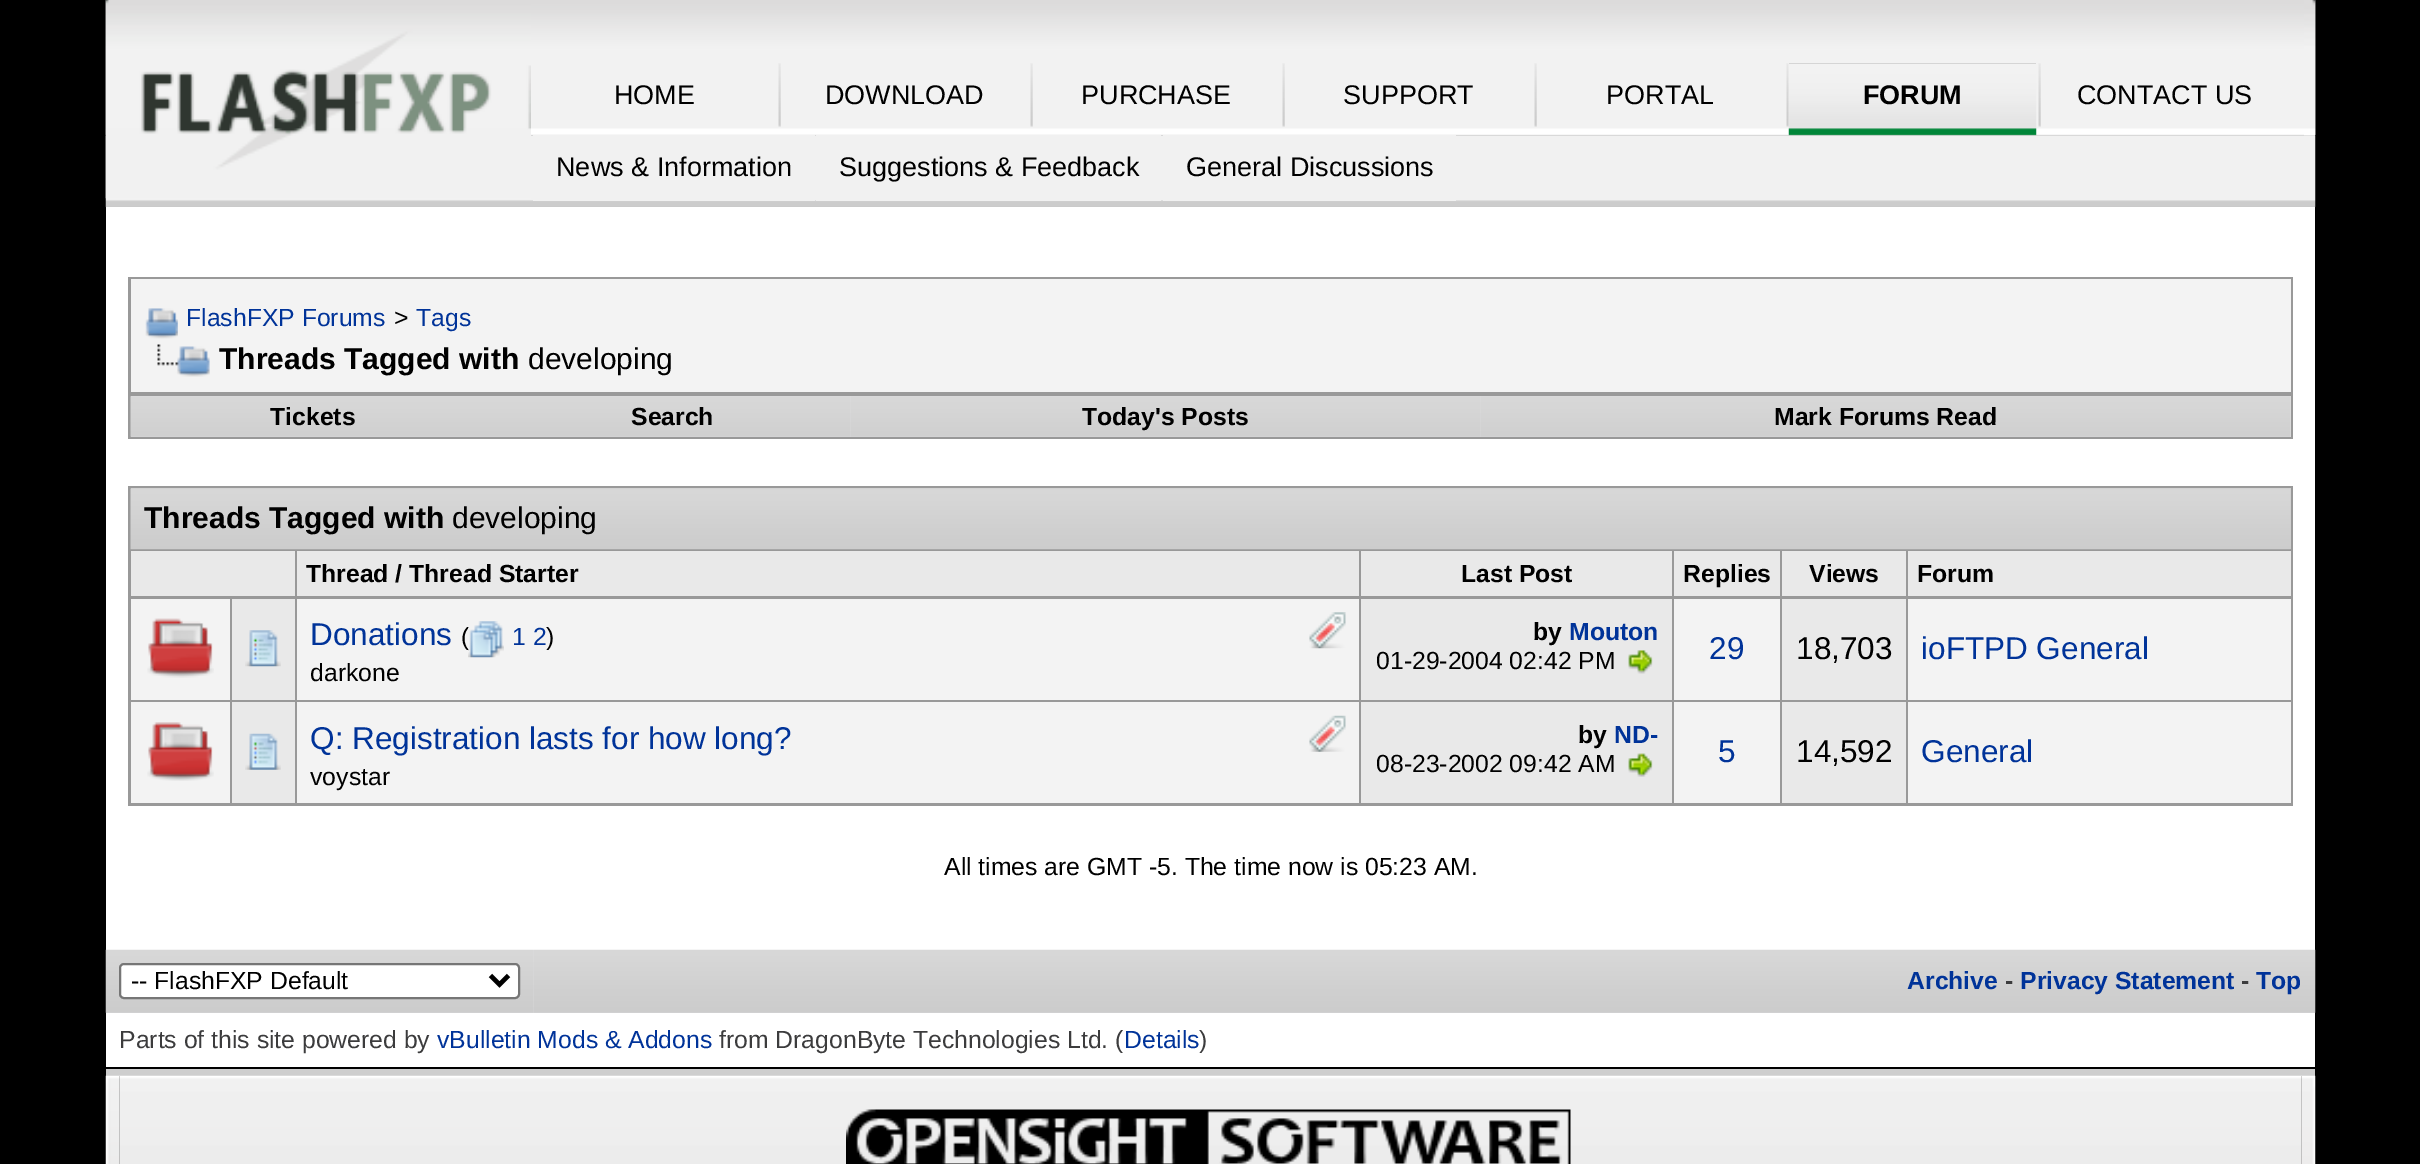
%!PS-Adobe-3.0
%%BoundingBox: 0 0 2420 1164
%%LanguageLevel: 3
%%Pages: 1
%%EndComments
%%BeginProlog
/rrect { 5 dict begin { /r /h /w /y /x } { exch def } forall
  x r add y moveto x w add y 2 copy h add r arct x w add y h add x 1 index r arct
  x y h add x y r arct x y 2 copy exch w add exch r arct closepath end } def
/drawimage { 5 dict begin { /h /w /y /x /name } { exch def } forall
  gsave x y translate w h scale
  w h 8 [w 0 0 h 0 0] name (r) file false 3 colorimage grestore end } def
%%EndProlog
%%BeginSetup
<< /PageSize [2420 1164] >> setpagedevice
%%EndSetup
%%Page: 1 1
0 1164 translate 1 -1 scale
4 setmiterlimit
0 setgray
0 0 2420 1164 rectfill
0.753 setgray
106 135 2209 72 rectfill
(images/6.raw) 105 135 2211 73 drawimage
(images/1.raw) 105 0 2211 136 drawimage
(images/2.raw) 105 0 426 199 drawimage
(images/3.raw) 778 63 3 64 drawimage
(images/3.raw) 1030 63 3 64 drawimage
(images/3.raw) 1282 63 3 64 drawimage
(images/3.raw) 1534 63 3 64 drawimage
(images/3.raw) 1786 63 3 64 drawimage
1789 63 247 72 rectfill
(images/4.raw) 1788 63 249 73 drawimage
(images/3.raw) 2038 63 3 64 drawimage
(images/5.raw) 2304 0 12 136 drawimage
0.945 setgray
533 135 282 66 rectfill
816 135 345 66 rectfill
1163 135 293 66 rectfill
1 setgray
106 207 2209 743 rectfill
0.6 setgray
128 277 2165 162 rectfill
0.953 setgray
131 279 2160 113 rectfill
(images/7.raw) 145 308 33 31 drawimage
(images/8.raw) 157 344 53 33 drawimage
(images/9.raw) 130 396 365 41 drawimage
0.882 0.882 0.886 setrgbcolor
495 396 1796 41 rectfill
(images/10.raw) 495 396 356 41 drawimage
(images/11.raw) 850 396 631 41 drawimage
(images/12.raw) 1480 396 811 41 drawimage
0.6 setgray
128 486 2165 320 rectfill
0.8 setgray
131 488 2160 61 rectfill
(images/13.raw) 130 488 2161 62 drawimage
0.914 setgray
131 551 164 45 rectfill
297 551 1062 45 rectfill
1361 551 311 45 rectfill
1674 551 106 45 rectfill
1782 551 124 45 rectfill
1908 551 383 45 rectfill
0.953 setgray
131 599 99 101 rectfill
(images/14.raw) 147 618 67 60 drawimage
0.914 setgray
232 599 63 101 rectfill
(images/15.raw) 245 630 36 37 drawimage
0.953 setgray
297 599 1062 101 rectfill
(images/17.raw) 1309 612 37 37 drawimage
0.914 setgray
1361 599 311 101 rectfill
(images/18.raw) 1628 650 25 24 drawimage
0.953 setgray
1674 599 106 101 rectfill
0.914 setgray
1782 599 124 101 rectfill
0.953 setgray
1908 599 383 101 rectfill
131 702 99 101 rectfill
(images/19.raw) 147 722 67 59 drawimage
0.914 setgray
232 702 63 101 rectfill
(images/20.raw) 245 733 36 37 drawimage
0.953 setgray
297 702 1062 101 rectfill
(images/21.raw) 1309 715 37 37 drawimage
0.914 setgray
1361 702 311 101 rectfill
(images/22.raw) 1628 753 25 24 drawimage
0.953 setgray
1674 702 106 101 rectfill
0.914 setgray
1782 702 124 101 rectfill
0.953 setgray
1908 702 383 101 rectfill
1 setgray
106 1012 2209 55 rectfill
(images/23.raw) 105 949 429 64 drawimage
120 964 399 34 4 rrect gsave fill grestore
0.463 setgray
2 setlinewidth
stroke
0 setgray
4.5 setlinewidth
newpath 490.5 975.5 moveto 499.5 984.5 lineto 508.5 975.5 lineto stroke
0.882 0.882 0.886 setrgbcolor
533 950 1782 63 rectfill
(images/24.raw) 533 949 1783 64 drawimage
0.808 setgray
106 1069 2209 7 rectfill
(images/26.raw) 119 1075 2183 89 drawimage
(images/25.raw) 105 1075 15 89 drawimage
(images/27.raw) 846 1109 725 55 drawimage
(images/28.raw) 2301 1075 15 89 drawimage
/LiberationSans-Regular [27 0 0 -27 0 0] selectfont
0 setgray
614 104 moveto (HOME) show
825 104 moveto (DOWNLOAD) show
1081 104 moveto (PURCHASE) show
1343 104 moveto (SUPPORT) show
1606 104 moveto (PORTAL) show
/LiberationSans-Bold [27 0 0 -27 0 0] selectfont
1863 104 moveto (FORUM) show
/LiberationSans-Regular [27 0 0 -27 0 0] selectfont
2077 104 moveto (CONTACT US) show
556 176 moveto (News & Information) show
839 176 moveto (Suggestions & Feedback) show
1186 176 moveto (General Discussions) show
/LiberationSans-Regular [24.75 0 0 -24.75 0 0] selectfont
0 0.2 0.6 setrgbcolor
186 326 moveto (FlashFXP Forums) show
0 setgray
394 326 moveto (>) show
0 0.2 0.6 setrgbcolor
416 326 moveto (Tags) show
/LiberationSans-Bold [30 0 0 -30 0 0] selectfont
0 setgray
219 369 moveto (Threads Tagged with) show
/LiberationSans-Regular [30 0 0 -30 0 0] selectfont
528 369 moveto (developing) show
/LiberationSans-Bold [24.75 0 0 -24.75 0 0] selectfont
270 425 moveto (Tickets) show
631 425 moveto (Search) show
1082 425 moveto (Today's Posts) show
1774 425 moveto (Mark Forums Read) show
/LiberationSans-Bold [30 0 0 -30 0 0] selectfont
144 528 moveto (Threads Tagged with) show
/LiberationSans-Regular [30 0 0 -30 0 0] selectfont
452 528 moveto (developing) show
/LiberationSans-Bold [24.75 0 0 -24.75 0 0] selectfont
306 582 moveto (Thread / Thread Starter) show
1461 582 moveto (Last Post) show
1683 582 moveto (Replies) show
1809 582 moveto (Views) show
1917 582 moveto (Forum) show
/LiberationSans-Regular [31.5 0 0 -31.5 0 0] selectfont
0 0.2 0.6 setrgbcolor
310 645 moveto (Donations) show
/LiberationSans-Regular [24.75 0 0 -24.75 0 0] selectfont
0 setgray
461 645 moveto (\() show
(images/16.raw) 468 621 36 37 drawimage
0 0.2 0.6 setrgbcolor
512 645 moveto (1 2) show
0 setgray
546 645 moveto (\)) show
310 681 moveto (darkone) show
/LiberationSans-Bold [24.75 0 0 -24.75 0 0] selectfont
1533 640 moveto (by) show
0 0.2 0.6 setrgbcolor
1569 640 moveto (Mouton) show
/LiberationSans-Regular [24.75 0 0 -24.75 0 0] selectfont
0 setgray
1376 669 moveto (01-29-2004 02:42 PM) show
/LiberationSans-Regular [31.5 0 0 -31.5 0 0] selectfont
0 0.2 0.6 setrgbcolor
1709 659 moveto (29) show
0 setgray
1796 659 moveto (18,703) show
0 0.2 0.6 setrgbcolor
1921 659 moveto (ioFTPD General) show
310 749 moveto (Q: Registration lasts for how long?) show
/LiberationSans-Regular [24.75 0 0 -24.75 0 0] selectfont
0 setgray
310 785 moveto (voystar) show
/LiberationSans-Bold [24.75 0 0 -24.75 0 0] selectfont
1578 743 moveto (by) show
0 0.2 0.6 setrgbcolor
1614 743 moveto (ND-) show
/LiberationSans-Regular [24.75 0 0 -24.75 0 0] selectfont
0 setgray
1376 772 moveto (08-23-2002 09:42 AM) show
/LiberationSans-Regular [31.5 0 0 -31.5 0 0] selectfont
0 0.2 0.6 setrgbcolor
1718 762 moveto (5) show
0 setgray
1796 762 moveto (14,592) show
0 0.2 0.6 setrgbcolor
1921 762 moveto (General) show
/LiberationSans-Regular [24.75 0 0 -24.75 0 0] selectfont
0 setgray
944 875 moveto (All times are GMT -5. The time now is 05:23 AM.) show
131 989 moveto (-- FlashFXP Default) show
/LiberationSans-Bold [24.75 0 0 -24.75 0 0] selectfont
0 0.2 0.6 setrgbcolor
1907 989 moveto (Archive) show
0.235 0.235 0.239 setrgbcolor
2005 989 moveto (-) show
0 0.2 0.6 setrgbcolor
2020 989 moveto (Privacy Statement) show
0.235 0.235 0.239 setrgbcolor
2241 989 moveto (-) show
0 0.2 0.6 setrgbcolor
2256 989 moveto (Top) show
/LiberationSans-Regular [24.75 0 0 -24.75 0 0] selectfont
0.235 0.235 0.239 setrgbcolor
119 1048 moveto (Parts of this site powered by) show
0 0.2 0.6 setrgbcolor
437 1048 moveto (vBulletin Mods & Addons) show
0.235 0.235 0.239 setrgbcolor
719 1048 moveto (from DragonByte Technologies Ltd. \() show
0 0.2 0.6 setrgbcolor
1124 1048 moveto (Details) show
0.235 0.235 0.239 setrgbcolor
1199 1048 moveto (\)) show
showpage
%%EOF
